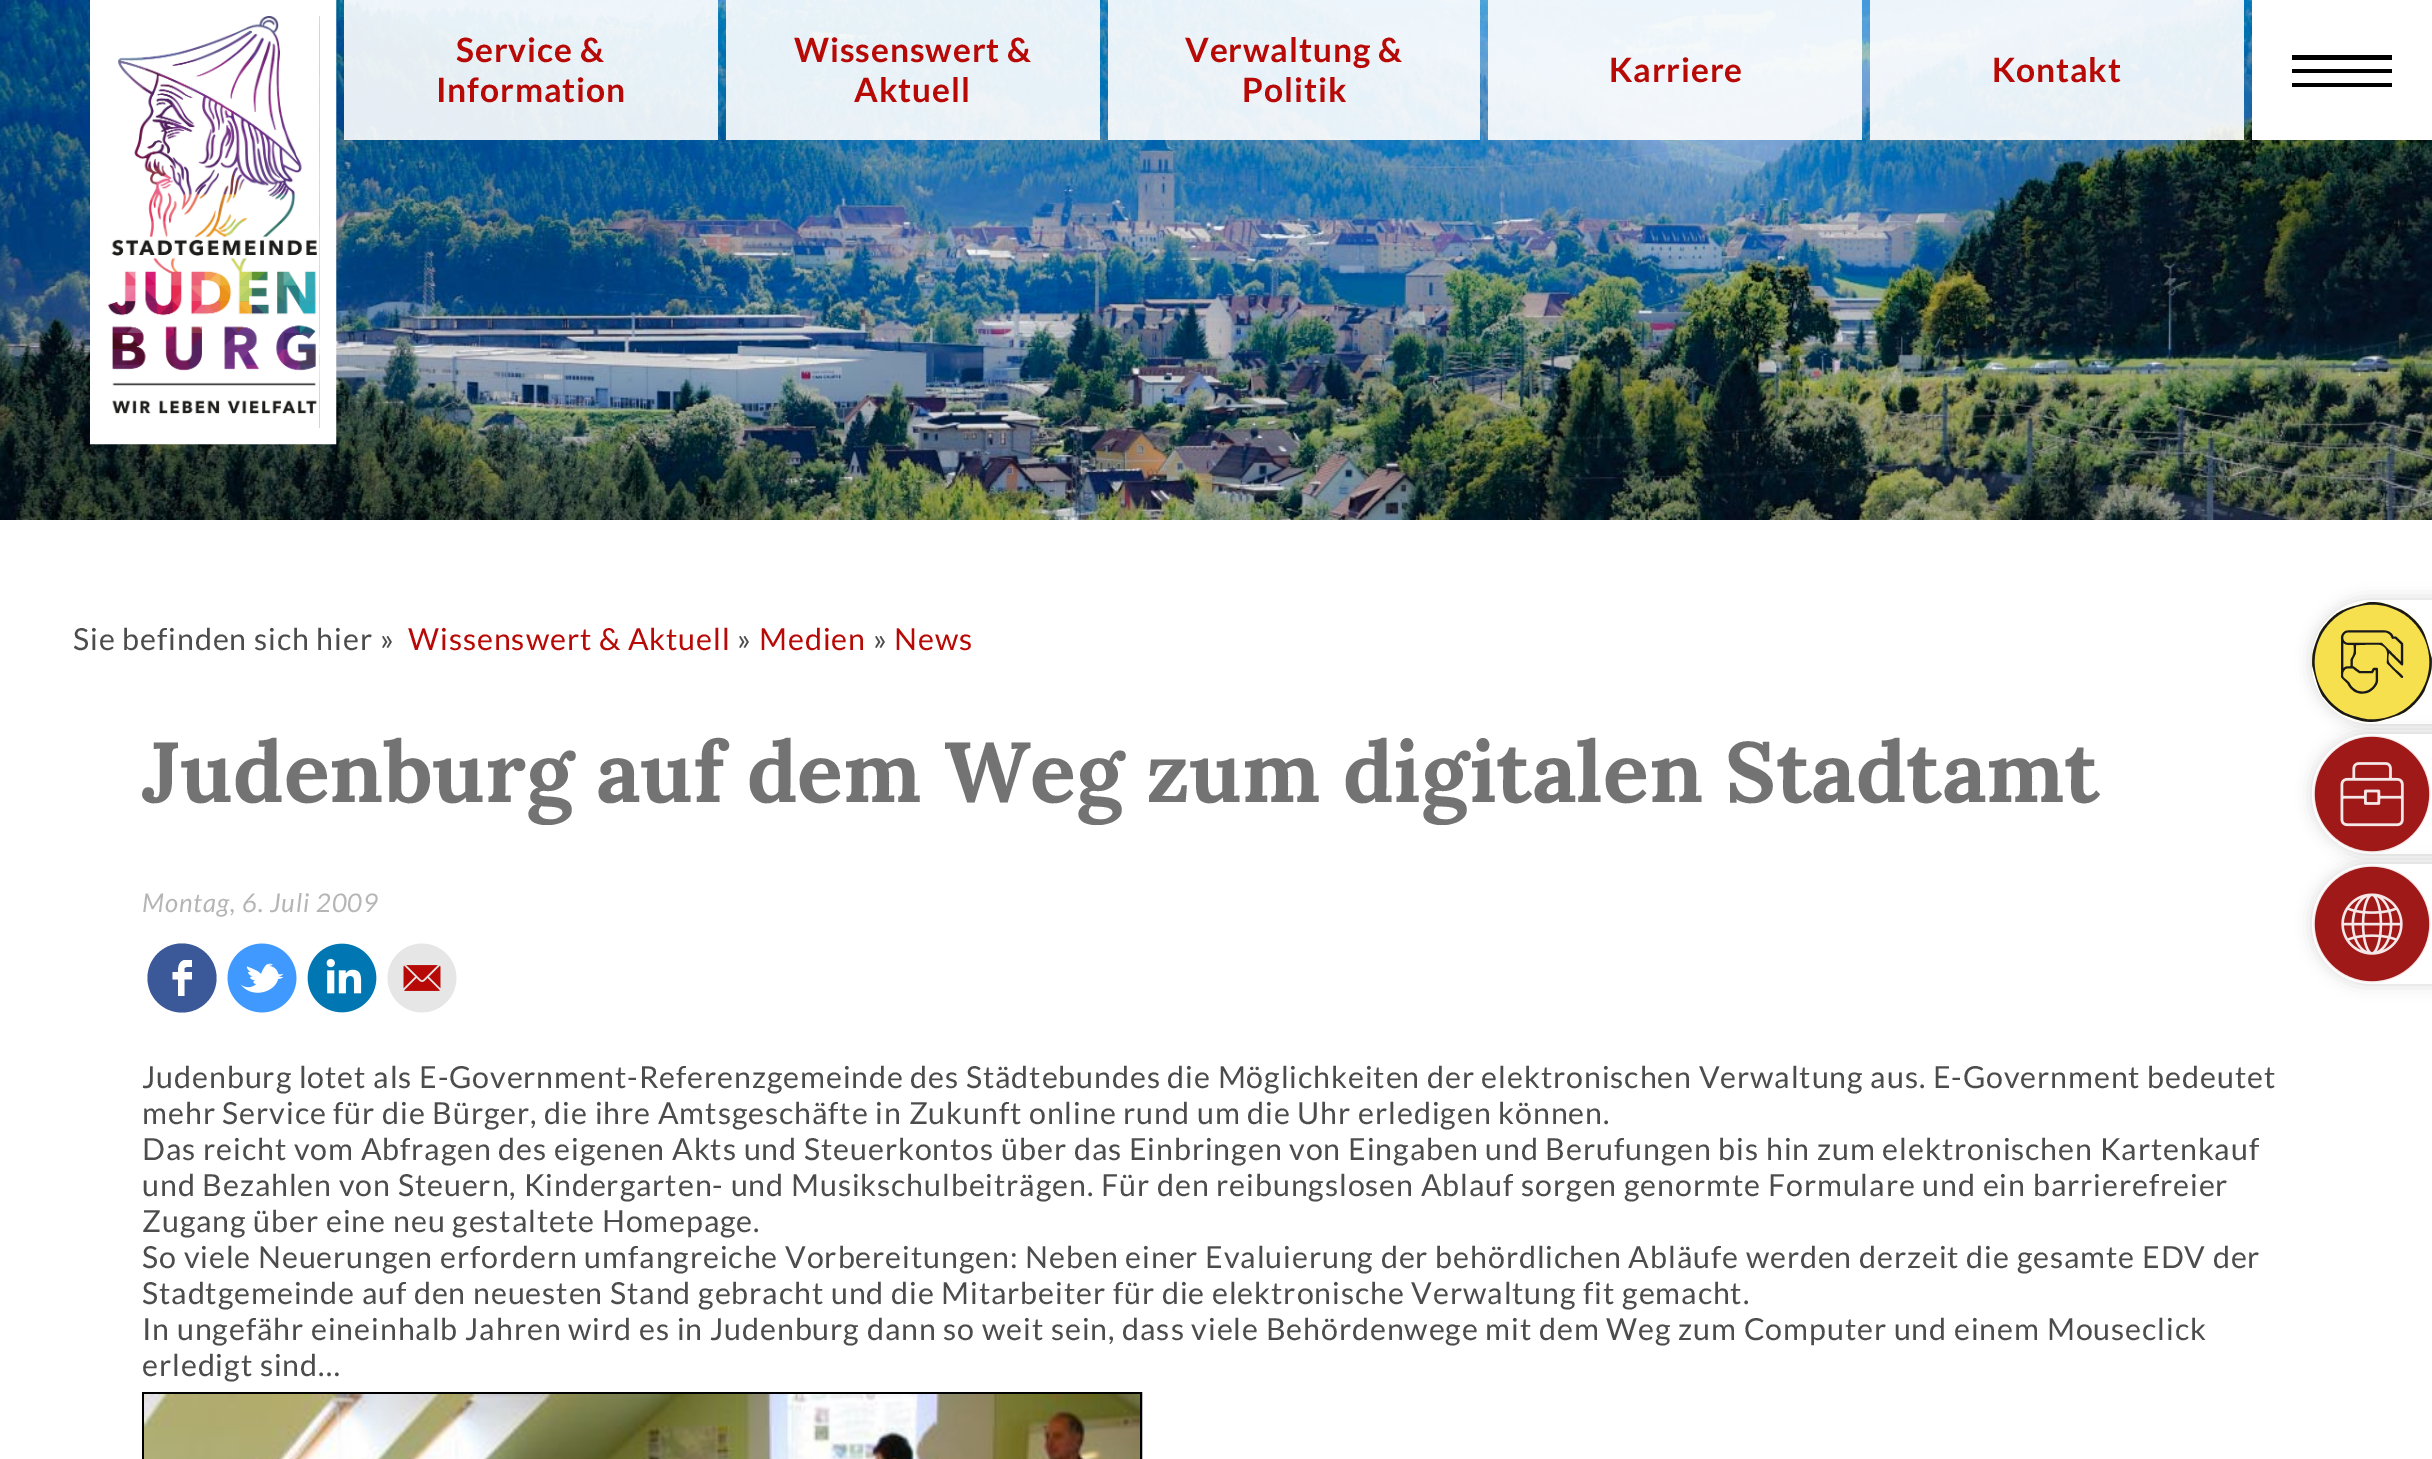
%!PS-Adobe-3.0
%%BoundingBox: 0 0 2432 1459
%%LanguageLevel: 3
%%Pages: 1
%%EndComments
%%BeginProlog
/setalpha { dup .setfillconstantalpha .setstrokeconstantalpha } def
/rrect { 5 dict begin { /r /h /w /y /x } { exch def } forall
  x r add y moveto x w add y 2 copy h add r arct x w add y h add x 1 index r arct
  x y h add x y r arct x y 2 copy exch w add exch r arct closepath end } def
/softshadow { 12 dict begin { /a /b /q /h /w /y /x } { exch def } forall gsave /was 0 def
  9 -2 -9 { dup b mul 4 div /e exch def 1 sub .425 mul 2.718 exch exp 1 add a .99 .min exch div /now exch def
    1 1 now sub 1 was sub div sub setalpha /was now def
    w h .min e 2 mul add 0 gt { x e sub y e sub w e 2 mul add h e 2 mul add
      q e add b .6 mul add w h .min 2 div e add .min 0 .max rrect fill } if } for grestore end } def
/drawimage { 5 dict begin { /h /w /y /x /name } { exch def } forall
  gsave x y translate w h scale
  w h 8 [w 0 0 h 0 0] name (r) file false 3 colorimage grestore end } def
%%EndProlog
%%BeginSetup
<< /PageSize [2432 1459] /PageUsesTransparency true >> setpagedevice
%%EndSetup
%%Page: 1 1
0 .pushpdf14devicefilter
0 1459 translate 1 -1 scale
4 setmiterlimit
1 setgray
0 0 2432 1459 rectfill
(images/1.raw) 0 0 2432 520 drawimage
16 setlinewidth
98 8 230 428 rectstroke
(images/2.raw) 106 16 214 412 drawimage
2252 0 180 140 rectfill
0 setgray
2292 55 100 5 rectfill
2292 69 100 4 rectfill
2292 83 100 4 rectfill
0.9 setalpha
1 setgray
344 0 374 140 rectfill
726 0 374 140 rectfill
1108 0 372 140 rectfill
1488 0 374 140 rectfill
1870 0 374 140 rectfill
1 setalpha
0.231 0.349 0.596 setrgbcolor
newpath 182 978 34.5 0 360 arc closepath fill
1 setgray
newpath 178 996 moveto 178 979.5 lineto 172.5 979.5 lineto 172.5 972 lineto 178 972 lineto 178 967.5 178.5 961.5 184.5 960 curveto 192 960 lineto 192 967 lineto 187 967 lineto 183.5 967 184.5 969.5 184.5 972 curveto 192 972 lineto 192 979.5 lineto 184.5 979.5 lineto 184.5 996 lineto closepath fill
(images/3.raw) 227 943 70 70 drawimage
(images/4.raw) 307 943 70 70 drawimage
(images/5.raw) 387 943 70 70 drawimage
0 setgray
2 setlinewidth
143 1393 998 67 rectstroke
(images/6.raw) 144 1394 996 65 drawimage
0.102 setgray
2312 600 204 124 60 8 0.18 softshadow
1 setgray
newpath 2372 600 moveto 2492 600 lineto 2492 724 lineto 2372 724 lineto 2339 724 2312 697 2312 664 curveto 2312 660 lineto 2312 627 2339 600 2372 600 curveto closepath fill
(images/7.raw) 2312 602 120 120 drawimage
gsave
newpath 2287 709 moveto 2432 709 lineto 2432 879 lineto 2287 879 lineto closepath 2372 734 moveto 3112 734 lineto 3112 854 lineto 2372 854 lineto 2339 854 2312 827 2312 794 curveto 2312 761 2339 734 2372 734 curveto closepath eoclip newpath
0 setgray
2312 734 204 120 60 8 0.16 softshadow
grestore
0.9 setalpha
newpath 2372 734 moveto 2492 734 lineto 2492 854 lineto 2372 854 lineto 2339 854 2312 827 2312 794 curveto 2312 761 2339 734 2372 734 curveto closepath fill
1 setalpha
(images/8.raw) 2313 735 118 118 drawimage
gsave
newpath 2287 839 moveto 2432 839 lineto 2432 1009 lineto 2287 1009 lineto closepath 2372 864 moveto 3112 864 lineto 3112 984 lineto 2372 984 lineto 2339 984 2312 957 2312 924 curveto 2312 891 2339 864 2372 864 curveto closepath eoclip newpath
0 setgray
2312 864 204 120 60 8 0.16 softshadow
grestore
0.9 setalpha
newpath 2372 864 moveto 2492 864 lineto 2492 984 lineto 2372 984 lineto 2339 984 2312 957 2312 924 curveto 2312 891 2339 864 2372 864 curveto closepath fill
1 setalpha
(images/9.raw) 2313 865 118 118 drawimage
/Lato-Bold [33.5 0 0 -33.5 0 0] selectfont
0.718 0.035 0.024 setrgbcolor
456 62 moveto 0.91 0 (Service &) ashow
436 102 moveto 0.91 0 (Information) ashow
794 62 moveto 0.91 0 (Wissenswert &) ashow
854 102 moveto 0.91 0 (Aktuell) ashow
1185 62 moveto 0.91 0 (Verwaltung &) ashow
1242 102 moveto 0.91 0 (Politik) ashow
1609 82 moveto 0.91 0 (Karriere) ashow
1992 82 moveto 0.91 0 (Kontakt) ashow
/Lato-Regular [30.4 0 0 -30.4 0 0] selectfont
0.298 setgray
73 650 moveto 0.91 0 (Sie befinden sich hier ») ashow
0.718 0.035 0.024 setrgbcolor
408 650 moveto 0.91 0 (Wissenswert & Aktuell) ashow
0.298 setgray
737 650 moveto 0.91 0 (») ashow
0.718 0.035 0.024 setrgbcolor
759 650 moveto 0.91 0 (Medien) ashow
0.298 setgray
873 650 moveto 0.91 0 (») ashow
0.718 0.035 0.024 setrgbcolor
894 650 moveto 0.91 0 (News) ashow
/Lora-Bold [85.1 0 0 -85.1 0 0] selectfont
0.451 setgray
142 802 moveto (Judenburg auf dem Weg zum digitalen Stadtamt) show
/Lato-Italic [25.75 0 0 -25.75 0 0] selectfont
0.71 setgray
142 912 moveto 0.91 0 (Montag, 6. Juli 2009) ashow
/Lato-Regular [30.4 0 0 -30.4 0 0] selectfont
0.298 setgray
142 1088 moveto -0.1 0 32 0.91 0 (Judenburg lotet als E-Government-Referenzgemeinde des Städtebundes die Möglichkeiten der elektronischen Verwaltung aus. E-Government bedeutet) awidthshow
142 1124 moveto 0.91 0 (mehr Service für die Bürger, die ihre Amtsgeschäfte in Zukunft online rund um die Uhr erledigen können.) ashow
142 1160 moveto 0.91 0 (Das reicht vom Abfragen des eigenen Akts und Steuerkontos über das Einbringen von Eingaben und Berufungen bis hin zum elektronischen Kartenkauf) ashow
142 1196 moveto 0.91 0 (und Bezahlen von Steuern, Kindergarten- und Musikschulbeiträgen. Für den reibungslosen Ablauf sorgen genormte Formulare und ein barrierefreier) ashow
142 1232 moveto 0.91 0 (Zugang über eine neu gestaltete Homepage.) ashow
142 1268 moveto 0.91 0 (So viele Neuerungen erfordern umfangreiche Vorbereitungen: Neben einer Evaluierung der behördlichen Abläufe werden derzeit die gesamte EDV der) ashow
142 1304 moveto 0.91 0 (Stadtgemeinde auf den neuesten Stand gebracht und die Mitarbeiter für die elektronische Verwaltung fit gemacht.) ashow
142 1340 moveto 0.91 0 (In ungefähr eineinhalb Jahren wird es in Judenburg dann so weit sein, dass viele Behördenwege mit dem Weg zum Computer und einem Mouseclick) ashow
142 1376 moveto 0.91 0 (erledigt sind…) ashow
.poppdf14devicefilter showpage
%%EOF
